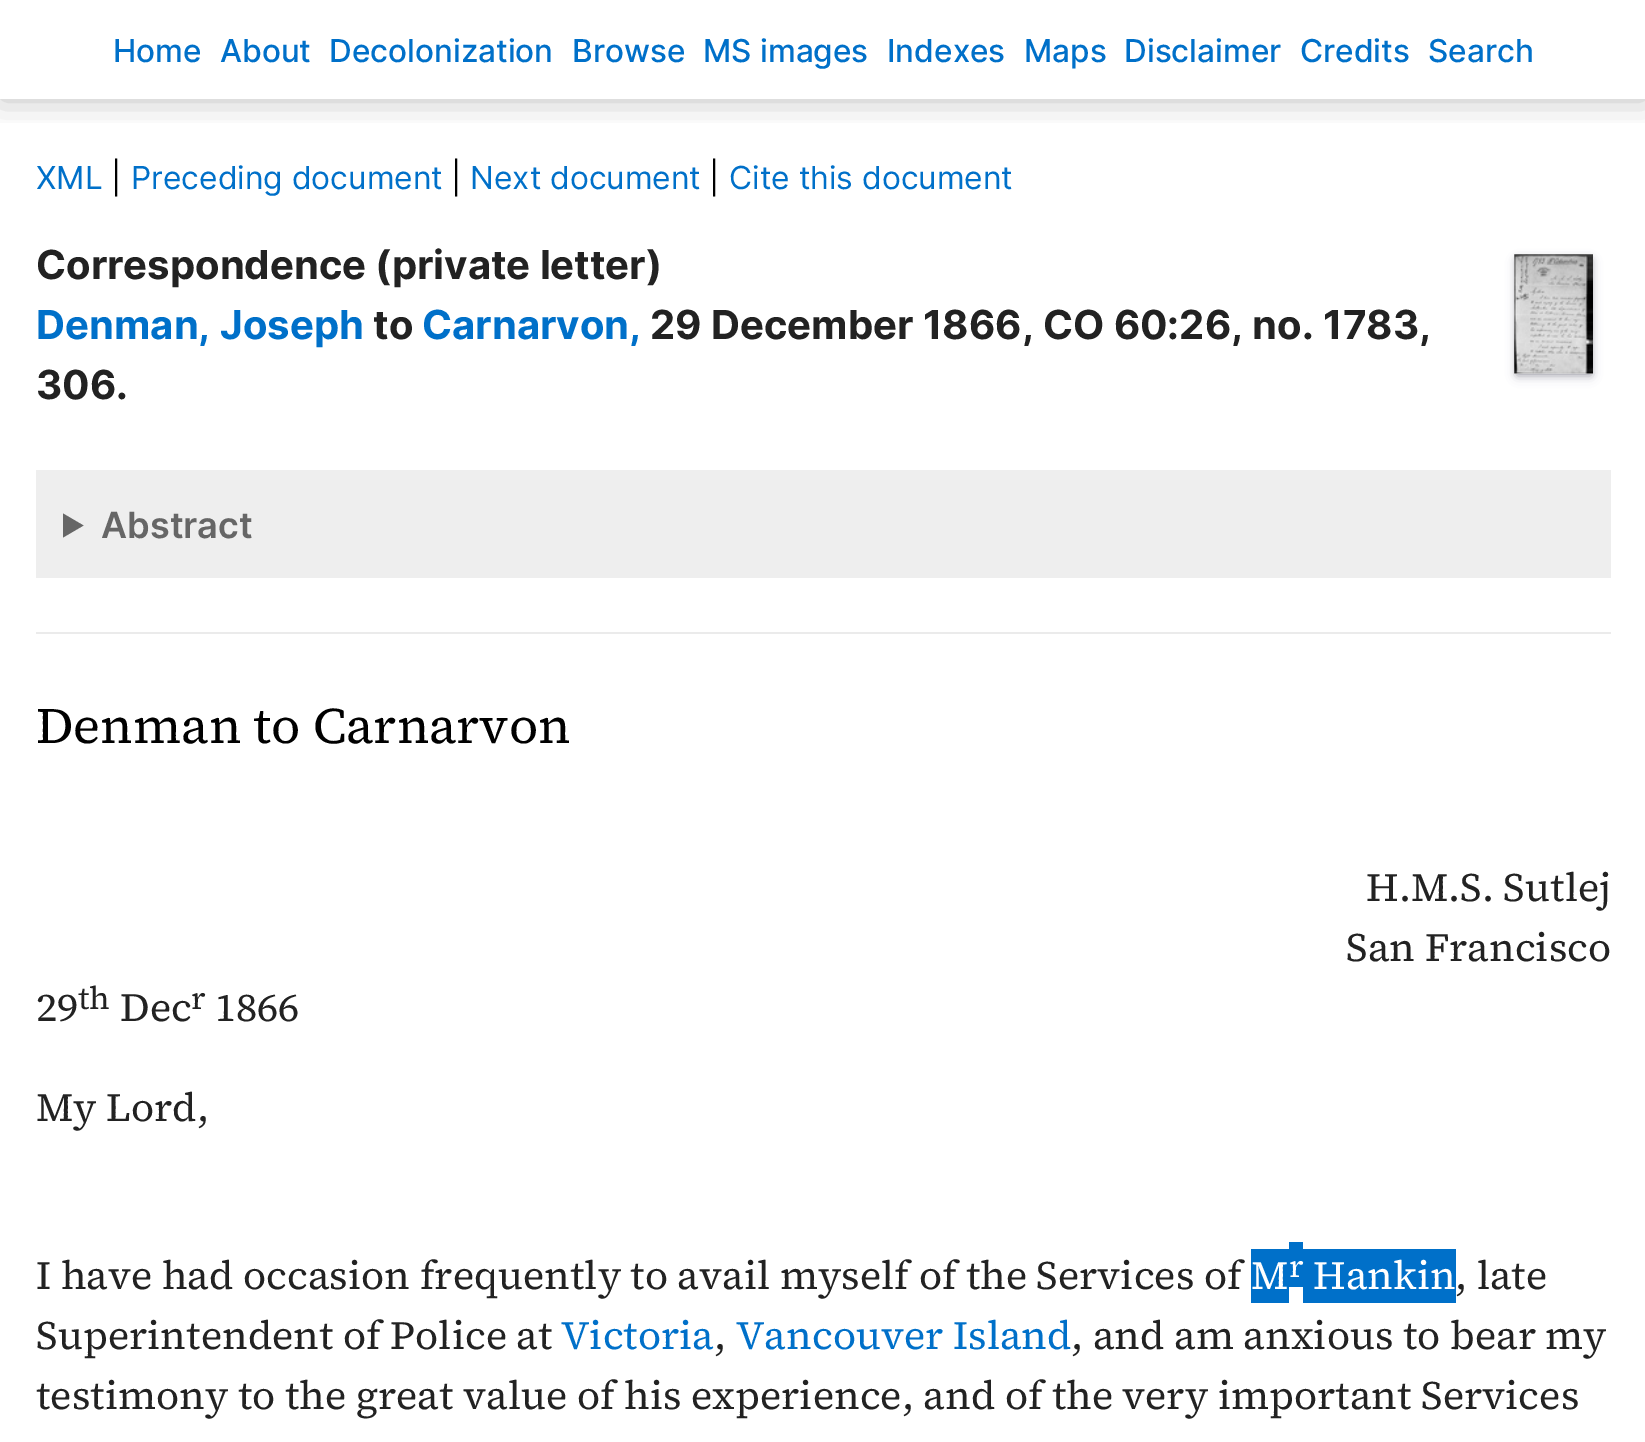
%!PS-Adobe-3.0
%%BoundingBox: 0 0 1645 1442
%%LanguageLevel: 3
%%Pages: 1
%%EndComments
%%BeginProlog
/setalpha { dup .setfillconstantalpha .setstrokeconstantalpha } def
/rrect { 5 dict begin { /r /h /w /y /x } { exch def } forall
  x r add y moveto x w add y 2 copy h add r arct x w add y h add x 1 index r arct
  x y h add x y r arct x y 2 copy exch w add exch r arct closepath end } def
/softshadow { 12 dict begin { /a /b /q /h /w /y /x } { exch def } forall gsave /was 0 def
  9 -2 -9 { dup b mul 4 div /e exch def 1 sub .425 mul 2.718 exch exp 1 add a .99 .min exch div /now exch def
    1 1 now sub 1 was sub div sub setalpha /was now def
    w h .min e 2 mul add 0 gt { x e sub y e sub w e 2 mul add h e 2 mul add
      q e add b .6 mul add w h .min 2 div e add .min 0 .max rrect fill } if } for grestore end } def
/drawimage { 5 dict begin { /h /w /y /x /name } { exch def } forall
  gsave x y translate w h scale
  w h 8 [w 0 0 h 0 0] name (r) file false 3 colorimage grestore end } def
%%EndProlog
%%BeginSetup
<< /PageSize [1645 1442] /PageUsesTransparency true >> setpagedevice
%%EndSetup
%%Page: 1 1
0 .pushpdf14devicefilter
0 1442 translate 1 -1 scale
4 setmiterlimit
1 setgray
0 0 1645 1442 rectfill
gsave
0 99 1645 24 rectclip
0 setgray
0 0 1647 99 0 17 0.25 softshadow
grestore
0.922 setgray
36 632 1575 2 rectfill
0 setgray
1517 259 74 115 0 3.5 0.3 softshadow
0.196 0.196 0.365 setrgbcolor
1517 261 74 115 0 5.5 0.25 softshadow
(images/1.raw) 1514 254 79 120 drawimage
0.933 setgray
36 470 1575 108 rectfill
0.4 setgray
newpath 63 513.5 moveto 83.5 525.5 lineto 63 537.5 lineto closepath fill
0 0.439 0.788 setrgbcolor
1251 1249 38 54 rectfill
1289 1242 14 45 rectfill
1303 1249 153 54 rectfill
/Inter-Medium [31.5 0 0 -31.5 0 0] selectfont
113 62 moveto (Home) show
220 62 moveto (About) show
329 62 moveto (Decolonization) show
572 62 moveto (Browse) show
703 62 moveto (MS images) show
887 62 moveto (Indexes) show
1024 62 moveto (Maps) show
1124 62 moveto (Disclaimer) show
1300 62 moveto (Credits) show
1428 62 moveto (Search) show
/Inter-Regular [31.75 0 0 -31.75 0 0] selectfont
36 189 moveto (XML) show
0 setgray
111 189 moveto (|) show
0 0.439 0.788 setrgbcolor
131 189 moveto (Preceding document) show
0 setgray
451 189 moveto (|) show
0 0.439 0.788 setrgbcolor
470 189 moveto (Next document) show
0 setgray
709 189 moveto (|) show
0 0.439 0.788 setrgbcolor
729 189 moveto (Cite this document) show
/Inter-Bold [40 0 0 -40 0 0] selectfont
0.133 setgray
36 279 moveto (Correspondence \(private letter\)) show
0 0.439 0.788 setrgbcolor
36 339 moveto (Denman, Joseph) show
0.133 setgray
373 339 moveto (to) show
0 0.439 0.788 setrgbcolor
422 339 moveto (Carnarvon,) show
0.133 setgray
650 339 moveto (29 December 1866, CO 60:26, no. 1783,) show
36 399 moveto (306.) show
/Inter-SemiBold [36 0 0 -36 0 0] selectfont
0.4 setgray
101 538 moveto (Abstract) show
/SourceSerif4-Regular [50.6 0 0 -50.6 0 0] selectfont
0 setgray
36 743 moveto (Denman to Carnarvon) show
/SourceSerif4-Regular [40 0 0 -40 0 0] selectfont
0.133 setgray
1366 901 moveto (H.M.S. Sutlej) show
1346 961 moveto (San Francisco) show
36 1021 moveto (29) show
/SourceSerif4-Regular [32 0 0 -32 0 0] selectfont
78 1009 moveto (th) show
/SourceSerif4-Regular [40 0 0 -40 0 0] selectfont
120 1021 moveto (Dec) show
/SourceSerif4-Regular [32 0 0 -32 0 0] selectfont
191 1009 moveto (r) show
/SourceSerif4-Regular [40 0 0 -40 0 0] selectfont
215 1021 moveto (1866) show
36 1121 moveto (My Lord,) show
36 1289 moveto (I have had occasion frequently to avail myself of the) show
1036 1289 moveto (Services of) show
1 setgray
1251 1289 moveto (M) show
/SourceSerif4-Regular [32 0 0 -32 0 0] selectfont
1289 1277 moveto (r) show
/SourceSerif4-Regular [40 0 0 -40 0 0] selectfont
1313 1289 moveto (Hankin) show
0.133 setgray
1455 1289 moveto (, late) show
36 1349 moveto (Superintendent of Police at) show
0 0.439 0.788 setrgbcolor
561 1349 moveto (Victoria) show
0.133 setgray
714 1349 moveto (,) show
0 0.439 0.788 setrgbcolor
736 1349 moveto (Vancouver Island) show
0.133 setgray
1071 1349 moveto (, and am anxious to bear my) show
36 1409 moveto (testimony to the great value of his experience, and of the) show
1122 1409 moveto (very important Services) show
.poppdf14devicefilter showpage
%%EOF
